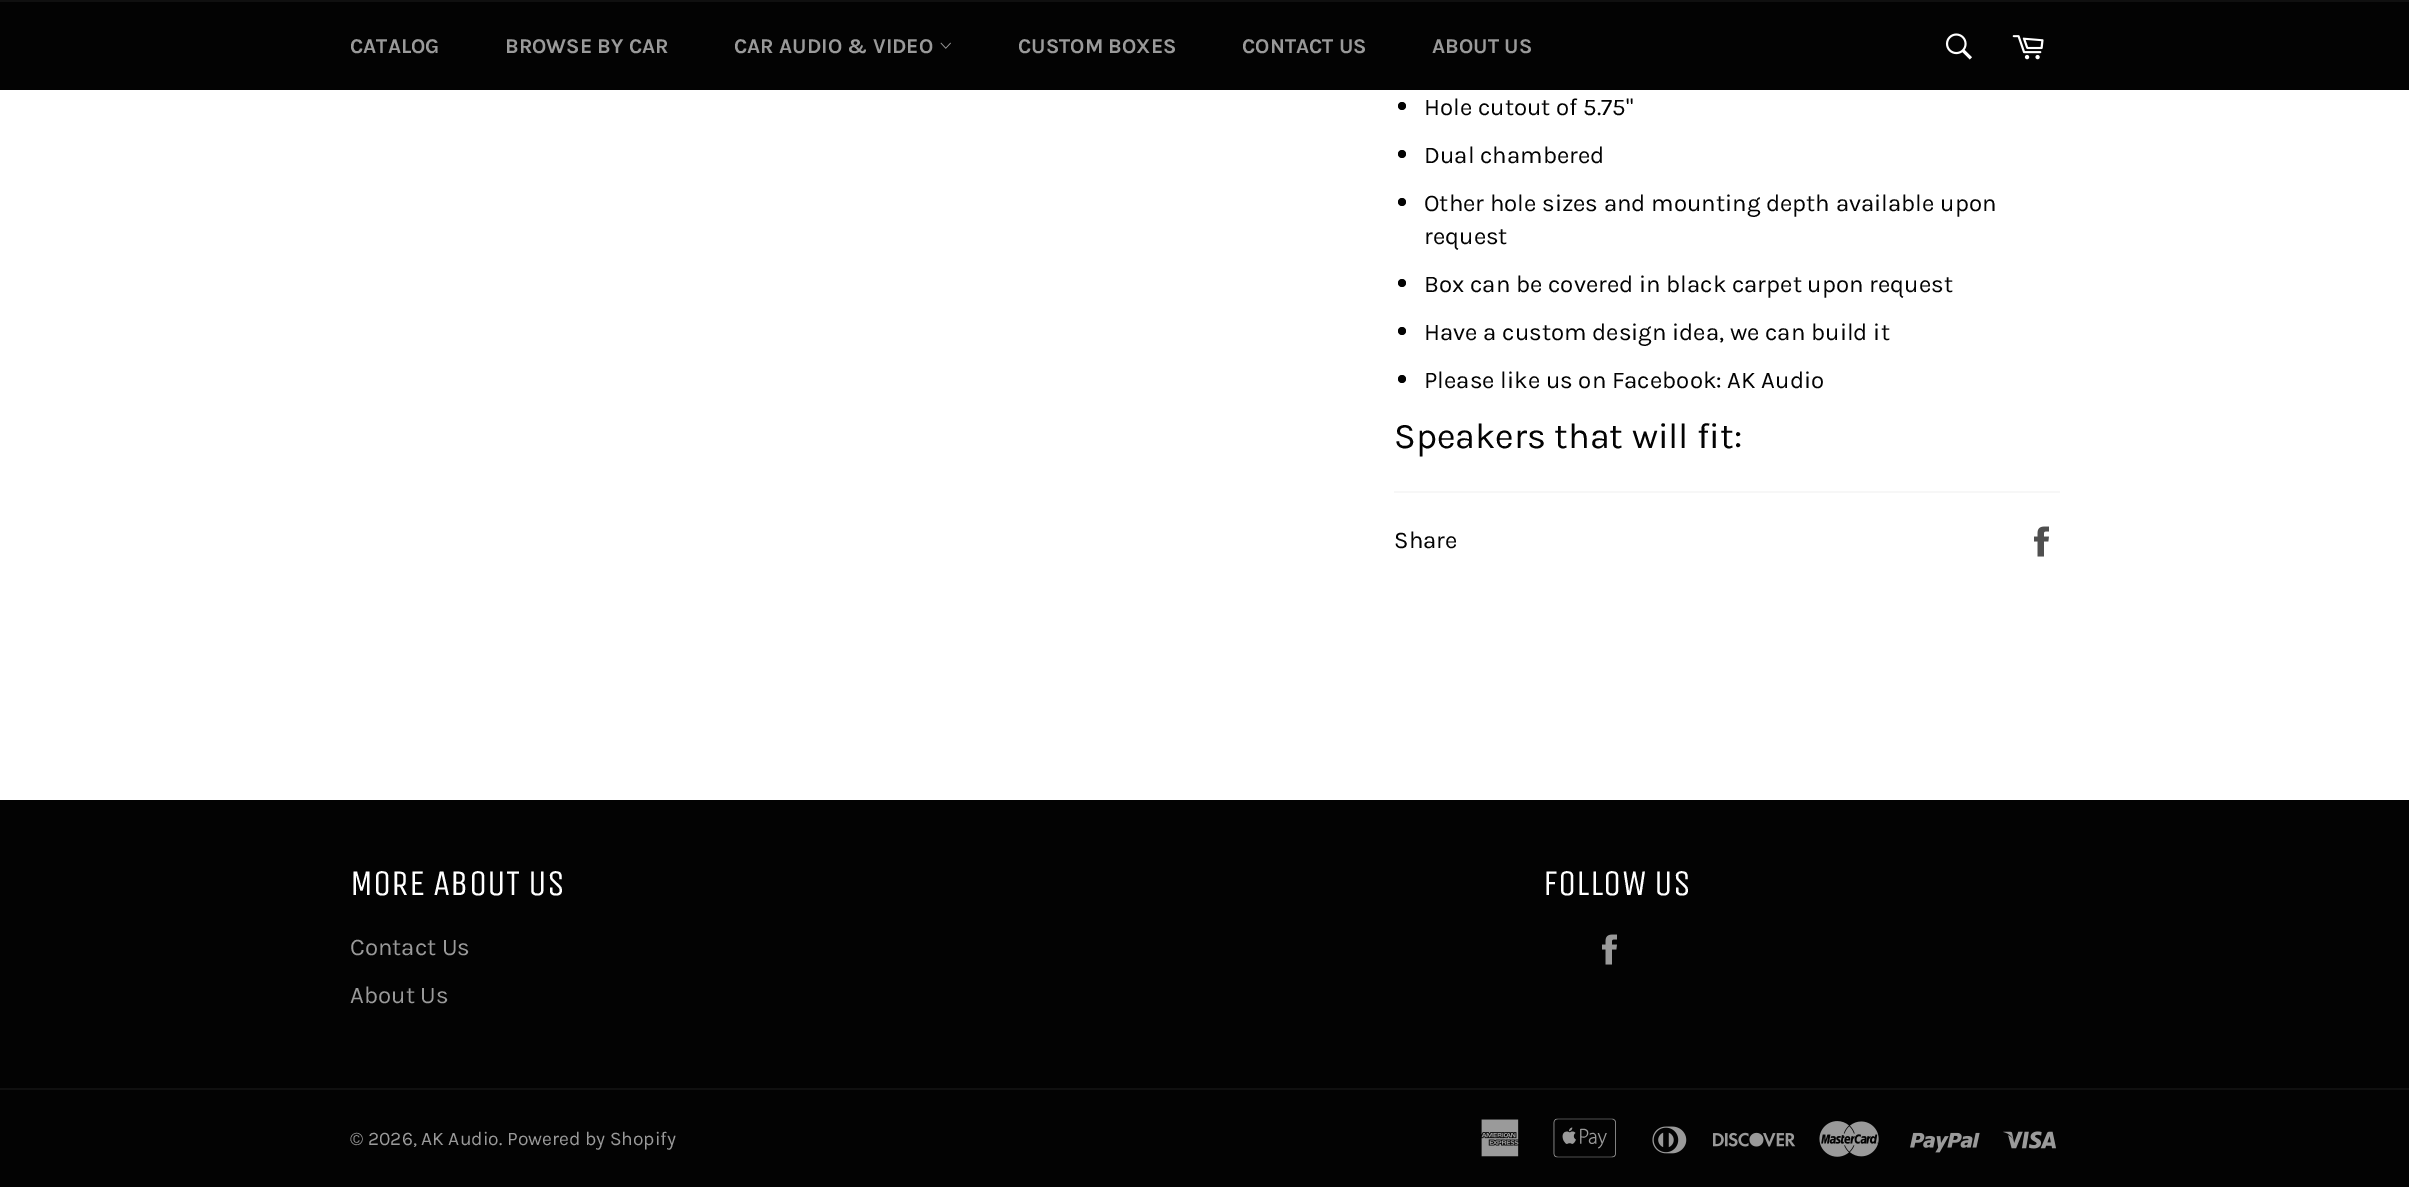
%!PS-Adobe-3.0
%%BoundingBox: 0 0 2409 1187
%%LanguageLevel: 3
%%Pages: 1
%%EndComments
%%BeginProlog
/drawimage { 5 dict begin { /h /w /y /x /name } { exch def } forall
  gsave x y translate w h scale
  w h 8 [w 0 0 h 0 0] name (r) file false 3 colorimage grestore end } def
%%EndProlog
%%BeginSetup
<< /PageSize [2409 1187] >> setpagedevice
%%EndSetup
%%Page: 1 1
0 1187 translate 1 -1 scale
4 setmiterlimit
1 setgray
0 0 2409 1187 rectfill
0.012 setgray
0 2 2409 88 rectfill
0.063 setgray
0 0 2409 2 rectfill
(images/1.raw) 940 42 11 7 drawimage
(images/2.raw) 1945 33 27 27 drawimage
(images/3.raw) 2012 35 32 25 drawimage
0.012 setgray
newpath 1402 106 4 0 360 arc closepath fill
newpath 1402 154 4 0 360 arc closepath fill
newpath 1402 202 4 0 360 arc closepath fill
newpath 1402 283 4 0 360 arc closepath fill
newpath 1402 331 4 0 360 arc closepath fill
newpath 1402 379 4 0 360 arc closepath fill
0.969 setgray
1394 491 666 2 rectfill
(images/4.raw) 2034 526 15 31 drawimage
0.012 setgray
0 800 2409 387 rectfill
(images/5.raw) 1602 934 15 31 drawimage
0.063 setgray
0 1088 2409 2 rectfill
(images/6.raw) 1481 1119 38 38 drawimage
(images/7.raw) 1553 1118 63 40 drawimage
(images/8.raw) 1652 1126 35 28 drawimage
(images/9.raw) 1713 1132 83 15 drawimage
(images/10.raw) 1819 1121 60 36 drawimage
(images/11.raw) 1910 1132 70 21 drawimage
(images/12.raw) 2003 1131 53 18 drawimage
/Karla-Bold [21 0 0 -21 0 0] selectfont
0.604 setgray
350 53 moveto (CATALOG) show
505 53 moveto (BROWSE BY CAR) show
734 53 moveto (CAR AUDIO & VIDEO) show
1018 53 moveto (CUSTOM BOXES) show
1242 53 moveto (CONTACT US) show
1432 53 moveto (ABOUT US) show
/Karla-Regular [24 0 0 -24 0 0] selectfont
0.012 setgray
1424 115 moveto (Hole cutout of 5.75") show
1424 163 moveto (Dual chambered) show
1424 211 moveto (Other hole sizes and mounting depth available upon) show
1424 244 moveto (request) show
1424 292 moveto (Box can be covered in black carpet upon request) show
1424 340 moveto (Have a custom design idea, we can build it) show
1424 388 moveto (Please like us on Facebook: AK Audio) show
/Karla-Regular [36 0 0 -36 0 0] selectfont
1394 448 moveto (Speakers that will fit:) show
/Karla-Regular [24 0 0 -24 0 0] selectfont
1394 548 moveto (Share) show
/UnicaOne-Regular [36 0 0 -36 0 0] selectfont
1 setgray
350 895 moveto (MORE ABOUT US) show
/Karla-Regular [24 0 0 -24 0 0] selectfont
0.604 setgray
350 955 moveto (Contact Us) show
350 1003 moveto (About Us) show
/UnicaOne-Regular [36 0 0 -36 0 0] selectfont
1 setgray
1543 895 moveto (FOLLOW US) show
/Karla-Regular [19.25 0 0 -19.25 0 0] selectfont
0.604 setgray
350 1145 moveto (© 2026, AK Audio. Powered by Shopify) show
showpage
%%EOF
